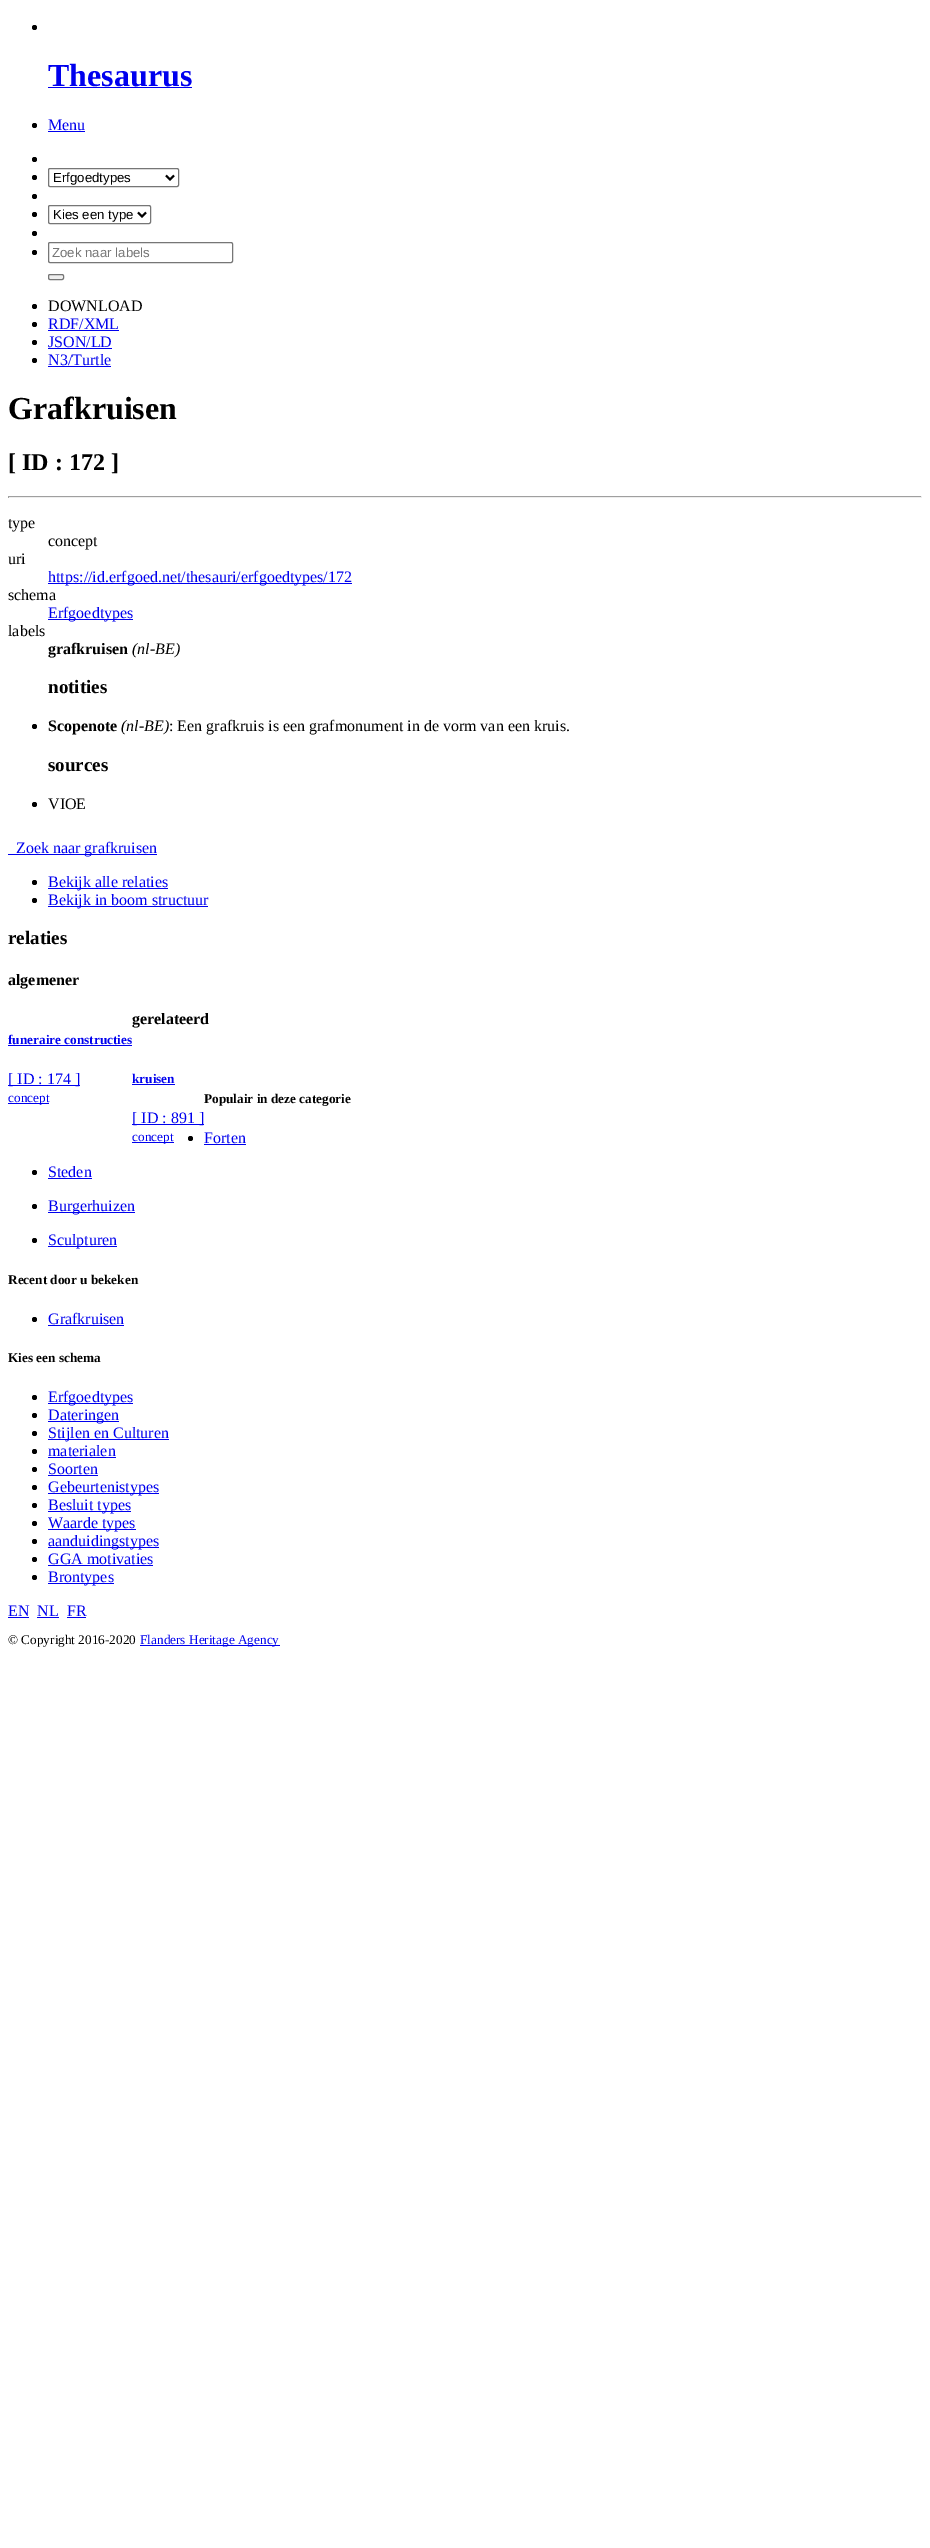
%!PS-Adobe-3.0
%%BoundingBox: 0 0 930 2548
%%LanguageLevel: 3
%%Pages: 1
%%EndComments
%%BeginProlog
/rrect { 5 dict begin { /r /h /w /y /x } { exch def } forall
  x r add y moveto x w add y 2 copy h add r arct x w add y h add x 1 index r arct
  x y h add x y r arct x y 2 copy exch w add exch r arct closepath end } def
%%EndProlog
%%BeginSetup
<< /PageSize [930 2548] >> setpagedevice
%%EndSetup
%%Page: 1 1
0 2548 translate 1 -1 scale
4 setmiterlimit
1 setgray
0 0 930 2548 rectfill
0 setgray
newpath 34.5 27.5 2.5 0 360 arc closepath fill
0 0 0.933 setrgbcolor
48 87 144 1 rectfill
0 setgray
newpath 34.5 125.5 2.5 0 360 arc closepath fill
0 0 0.933 setrgbcolor
48 131 37 1 rectfill
0 setgray
newpath 34.5 159.5 2.5 0 360 arc closepath fill
newpath 34.5 177.5 2.5 0 360 arc closepath fill
0.463 setgray
48.5 168.5 130 18 1.5 rrect stroke
0 setgray
2 setlinewidth
newpath 166 175.5 moveto 170 179.5 lineto 174 175.5 lineto stroke
newpath 34.5 196.5 2.5 0 360 arc closepath fill
newpath 34.5 214.5 2.5 0 360 arc closepath fill
0.463 setgray
1 setlinewidth
48.5 205.5 102 18 1.5 rrect stroke
0 setgray
2 setlinewidth
newpath 138 212.5 moveto 142 216.5 lineto 146 212.5 lineto stroke
newpath 34.5 233.5 2.5 0 360 arc closepath fill
newpath 34.5 252.5 2.5 0 360 arc closepath fill
0.463 setgray
1 setlinewidth
48.5 242.5 184 20 1.5 rrect stroke
0.937 setgray
48.5 274.5 15 5 1.5 rrect gsave fill grestore
0.463 setgray
stroke
0 setgray
newpath 34.5 306.5 2.5 0 360 arc closepath fill
newpath 34.5 324.5 2.5 0 360 arc closepath fill
0 0 0.933 setrgbcolor
48 330 71 1 rectfill
0 setgray
newpath 34.5 342.5 2.5 0 360 arc closepath fill
0 0 0.933 setrgbcolor
48 348 64 1 rectfill
0 setgray
newpath 34.5 360.5 2.5 0 360 arc closepath fill
0 0 0.933 setrgbcolor
48 366 63 1 rectfill
0.624 setgray
8 496 914 1 rectfill
0.933 setgray
921 496 1 2 rectfill
8 497 914 1 rectfill
0.624 setgray
8 496 1 2 rectfill
0 0 0.933 setrgbcolor
48 583 304 1 rectfill
48 619 85 1 rectfill
0 setgray
newpath 34.5 726.5 2.5 0 360 arc closepath fill
newpath 34.5 804.5 2.5 0 360 arc closepath fill
0 0 0.933 setrgbcolor
8 854 149 1 rectfill
0 setgray
newpath 34.5 882.5 2.5 0 360 arc closepath fill
0 0 0.933 setrgbcolor
48 888 120 1 rectfill
0 setgray
newpath 34.5 900.5 2.5 0 360 arc closepath fill
0 0 0.933 setrgbcolor
48 906 160 1 rectfill
8 1045 124 1 rectfill
8 1085 72 1 rectfill
8 1103 41 1 rectfill
132 1084 43 1 rectfill
132 1124 72 1 rectfill
132 1142 42 1 rectfill
0 setgray
newpath 190.5 1138.5 2.5 0 360 arc closepath fill
0 0 0.933 setrgbcolor
204 1144 42 1 rectfill
0 setgray
newpath 34.5 1172.5 2.5 0 360 arc closepath fill
0 0 0.933 setrgbcolor
48 1178 44 1 rectfill
0 setgray
newpath 34.5 1206.5 2.5 0 360 arc closepath fill
0 0 0.933 setrgbcolor
48 1212 87 1 rectfill
0 setgray
newpath 34.5 1240.5 2.5 0 360 arc closepath fill
0 0 0.933 setrgbcolor
48 1246 69 1 rectfill
0 setgray
newpath 34.5 1319.5 2.5 0 360 arc closepath fill
0 0 0.933 setrgbcolor
48 1325 76 1 rectfill
0 setgray
newpath 34.5 1397.5 2.5 0 360 arc closepath fill
0 0 0.933 setrgbcolor
48 1403 85 1 rectfill
0 setgray
newpath 34.5 1415.5 2.5 0 360 arc closepath fill
0 0 0.933 setrgbcolor
48 1421 71 1 rectfill
0 setgray
newpath 34.5 1433.5 2.5 0 360 arc closepath fill
0 0 0.933 setrgbcolor
48 1439 121 1 rectfill
0 setgray
newpath 34.5 1451.5 2.5 0 360 arc closepath fill
0 0 0.933 setrgbcolor
48 1457 68 1 rectfill
0 setgray
newpath 34.5 1469.5 2.5 0 360 arc closepath fill
0 0 0.933 setrgbcolor
48 1475 50 1 rectfill
0 setgray
newpath 34.5 1487.5 2.5 0 360 arc closepath fill
0 0 0.933 setrgbcolor
48 1493 111 1 rectfill
0 setgray
newpath 34.5 1505.5 2.5 0 360 arc closepath fill
0 0 0.933 setrgbcolor
48 1511 83 1 rectfill
0 setgray
newpath 34.5 1523.5 2.5 0 360 arc closepath fill
0 0 0.933 setrgbcolor
48 1529 88 1 rectfill
0 setgray
newpath 34.5 1541.5 2.5 0 360 arc closepath fill
0 0 0.933 setrgbcolor
48 1547 111 1 rectfill
0 setgray
newpath 34.5 1559.5 2.5 0 360 arc closepath fill
0 0 0.933 setrgbcolor
48 1565 105 1 rectfill
0 setgray
newpath 34.5 1577.5 2.5 0 360 arc closepath fill
0 0 0.933 setrgbcolor
48 1583 66 1 rectfill
8 1617 21 1 rectfill
37 1617 22 1 rectfill
67 1617 19 1 rectfill
140 1645 140 1 rectfill
/LiberationSerif-Bold [32 0 0 -32 0 0] selectfont
48 86 moveto (Thesaurus) show
/LiberationSerif-Regular [16 0 0 -16 0 0] selectfont
48 130 moveto (Menu) show
/LiberationSans-Regular [13.25 0 0 -13.25 0 0] selectfont
0 setgray
53 182 moveto (Erfgoedtypes) show
53 219 moveto (Kies een type) show
0.459 setgray
52 257 moveto (Zoek naar labels) show
/LiberationSerif-Regular [16 0 0 -16 0 0] selectfont
0 setgray
48 311 moveto (DOWNLOAD) show
0 0 0.933 setrgbcolor
48 329 moveto (RDF/XML) show
48 347 moveto (JSON/LD) show
48 365 moveto (N3/Turtle) show
/LiberationSerif-Bold [32 0 0 -32 0 0] selectfont
0 setgray
8 419 moveto (Grafkruisen) show
/LiberationSerif-Bold [24 0 0 -24 0 0] selectfont
8 470 moveto ([ ID : 172 ]) show
/LiberationSerif-Regular [16 0 0 -16 0 0] selectfont
8 528 moveto (type) show
48 546 moveto (concept) show
8 564 moveto (uri) show
0 0 0.933 setrgbcolor
48 582 moveto (https://id.erfgoed.net/thesauri/erfgoedtypes/172) show
0 setgray
8 600 moveto (schema) show
0 0 0.933 setrgbcolor
48 618 moveto (Erfgoedtypes) show
0 setgray
8 636 moveto (labels) show
/LiberationSerif-Bold [16 0 0 -16 0 0] selectfont
48 654 moveto (grafkruisen) show
/LiberationSerif-Italic [16 0 0 -16 0 0] selectfont
132 654 moveto (\(nl-BE\)) show
/LiberationSerif-Bold [19 0 0 -19 0 0] selectfont
48 693 moveto (notities) show
/LiberationSerif-Bold [16 0 0 -16 0 0] selectfont
48 731 moveto (Scopenote) show
/LiberationSerif-Italic [16 0 0 -16 0 0] selectfont
121 731 moveto (\(nl-BE\)) show
/LiberationSerif-Regular [16 0 0 -16 0 0] selectfont
169 731 moveto (: Een grafkruis is een grafmonument in de vorm van een kruis.) show
/LiberationSerif-Bold [19 0 0 -19 0 0] selectfont
48 771 moveto (sources) show
/LiberationSerif-Regular [16 0 0 -16 0 0] selectfont
48 809 moveto (VIOE) show
0 0 0.933 setrgbcolor
16 853 moveto (Zoek naar grafkruisen) show
48 887 moveto (Bekijk alle relaties) show
48 905 moveto (Bekijk in boom structuur) show
/LiberationSerif-Bold [19 0 0 -19 0 0] selectfont
0 setgray
8 944 moveto (relaties) show
/LiberationSerif-Bold [16 0 0 -16 0 0] selectfont
8 985 moveto (algemener) show
/LiberationSerif-Bold [13.25 0 0 -13.25 0 0] selectfont
0 0 0.933 setrgbcolor
8 1044 moveto (funeraire constructies) show
/LiberationSerif-Regular [16 0 0 -16 0 0] selectfont
8 1084 moveto ([ ID : 174 ]) show
/LiberationSerif-Regular [13.25 0 0 -13.25 0 0] selectfont
8 1102 moveto (concept) show
/LiberationSerif-Bold [16 0 0 -16 0 0] selectfont
0 setgray
132 1024 moveto (gerelateerd) show
/LiberationSerif-Bold [13.25 0 0 -13.25 0 0] selectfont
0 0 0.933 setrgbcolor
132 1083 moveto (kruisen) show
/LiberationSerif-Regular [16 0 0 -16 0 0] selectfont
132 1123 moveto ([ ID : 891 ]) show
/LiberationSerif-Regular [13.25 0 0 -13.25 0 0] selectfont
132 1141 moveto (concept) show
/LiberationSerif-Bold [13.25 0 0 -13.25 0 0] selectfont
0 setgray
204 1103 moveto (Populair in deze categorie) show
/LiberationSerif-Regular [16 0 0 -16 0 0] selectfont
0 0 0.933 setrgbcolor
204 1143 moveto (Forten) show
48 1177 moveto (Steden) show
48 1211 moveto (Burgerhuizen) show
48 1245 moveto (Sculpturen) show
/LiberationSerif-Bold [13.25 0 0 -13.25 0 0] selectfont
0 setgray
8 1284 moveto (Recent door u bekeken) show
/LiberationSerif-Regular [16 0 0 -16 0 0] selectfont
0 0 0.933 setrgbcolor
48 1324 moveto (Grafkruisen) show
/LiberationSerif-Bold [13.25 0 0 -13.25 0 0] selectfont
0 setgray
8 1362 moveto (Kies een schema) show
/LiberationSerif-Regular [16 0 0 -16 0 0] selectfont
0 0 0.933 setrgbcolor
48 1402 moveto (Erfgoedtypes) show
48 1420 moveto (Dateringen) show
48 1438 moveto (Stijlen en Culturen) show
48 1456 moveto (materialen) show
48 1474 moveto (Soorten) show
48 1492 moveto (Gebeurtenistypes) show
48 1510 moveto (Besluit types) show
48 1528 moveto (Waarde types) show
48 1546 moveto (aanduidingstypes) show
48 1564 moveto (GGA motivaties) show
48 1582 moveto (Brontypes) show
8 1616 moveto (EN) show
37 1616 moveto (NL) show
67 1616 moveto (FR) show
/LiberationSerif-Regular [13.25 0 0 -13.25 0 0] selectfont
0 setgray
8 1644 moveto (© Copyright 2016-2020) show
0 0 0.933 setrgbcolor
140 1644 moveto (Flanders Heritage Agency) show
showpage
%%EOF
